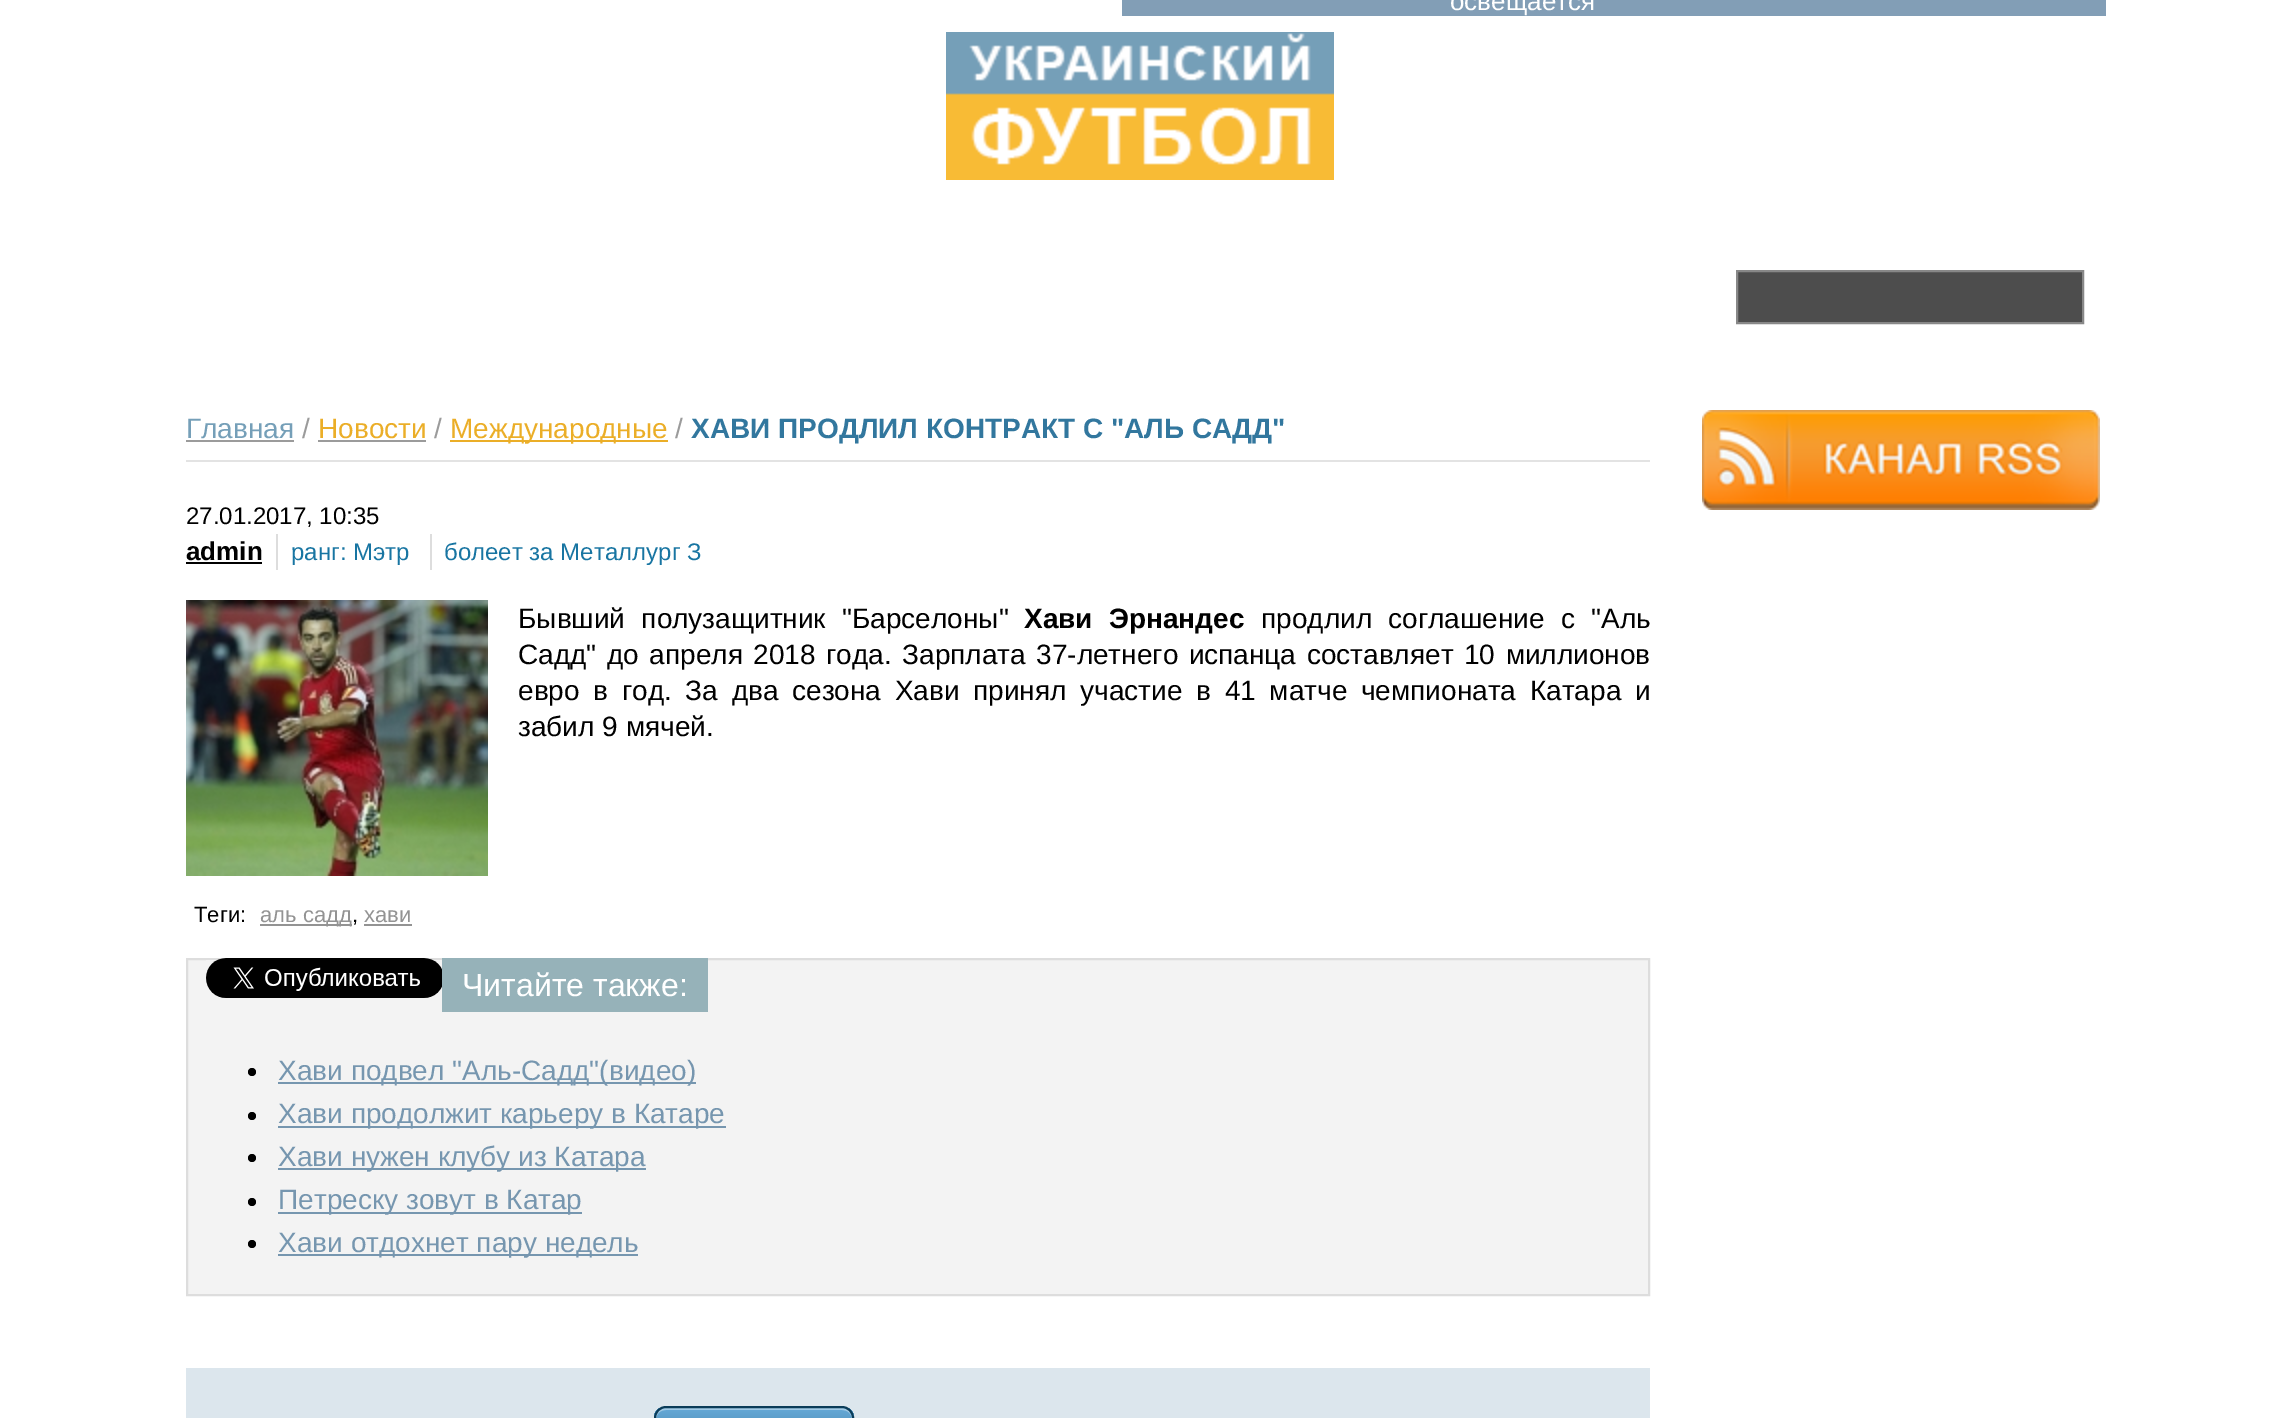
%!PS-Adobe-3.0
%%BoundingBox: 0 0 2291 1418
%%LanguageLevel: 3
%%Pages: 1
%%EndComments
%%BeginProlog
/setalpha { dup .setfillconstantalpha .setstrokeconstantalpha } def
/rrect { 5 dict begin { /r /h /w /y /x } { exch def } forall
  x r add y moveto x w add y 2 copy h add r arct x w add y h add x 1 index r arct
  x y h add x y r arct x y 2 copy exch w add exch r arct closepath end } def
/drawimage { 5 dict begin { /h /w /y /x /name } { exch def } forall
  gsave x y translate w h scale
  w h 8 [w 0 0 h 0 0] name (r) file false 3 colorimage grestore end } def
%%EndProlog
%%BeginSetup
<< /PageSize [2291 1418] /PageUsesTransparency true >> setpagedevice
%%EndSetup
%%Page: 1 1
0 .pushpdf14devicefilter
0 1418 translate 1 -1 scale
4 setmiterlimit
1 setgray
0 0 2291 1418 rectfill
0.51 0.62 0.714 setrgbcolor
1122 0 984 16 rectfill
(images/1.raw) 946 32 388 148 drawimage
0.302 setgray
newpath 1737 271 moveto 2083 271 lineto 2083 323 lineto 1737 323 lineto closepath gsave fill grestore
0.533 setgray
2 setlinewidth
stroke
0.89 setgray
186 460 1464 2 rectfill
0.608 setgray
186 440 108 2 rectfill
318 440 108 2 rectfill
0.922 0.682 0.157 setrgbcolor
450 440 218 2 rectfill
0 setgray
186 562 76 2 rectfill
0.867 setgray
276 534 2 36 rectfill
430 534 2 36 rectfill
(images/2.raw) 186 600 302 276 drawimage
0.576 setgray
260 924 92 2 rectfill
364 924 48 2 rectfill
0.953 setgray
newpath 187 959 moveto 1649 959 lineto 1649 1295 lineto 187 1295 lineto closepath gsave fill grestore
0.867 setgray
stroke
(images/3.raw) 206 958 236 40 drawimage
0.588 0.698 0.725 setrgbcolor
442 958 266 54 rectfill
0 setgray
newpath 252 1072 4 0 360 arc closepath fill
0.463 0.588 0.686 setrgbcolor
278 1082 418 2 rectfill
0 setgray
newpath 252 1116 4 0 360 arc closepath fill
0.463 0.588 0.686 setrgbcolor
278 1126 448 2 rectfill
0 setgray
newpath 252 1158 4 0 360 arc closepath fill
0.463 0.588 0.686 setrgbcolor
278 1168 368 2 rectfill
0 setgray
newpath 252 1202 4 0 360 arc closepath fill
0.463 0.588 0.686 setrgbcolor
278 1212 304 2 rectfill
0 setgray
newpath 252 1244 4 0 360 arc closepath fill
0.463 0.588 0.686 setrgbcolor
278 1254 360 2 rectfill
0.863 0.902 0.929 setrgbcolor
186 1368 1464 50 rectfill
gsave
654 1406 200 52 12 rrect clip newpath
gsave newpath 654 1408 moveto 854 1408 lineto 854 1418 lineto 654 1418 lineto closepath clip newpath
<< /ShadingType 2 /ColorSpace /DeviceRGB /Coords [754 1408 754 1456] /Extend [true true] /Function << /FunctionType 2 /Domain [0 1] /C0 [0.396 0.663 0.843] /C1 [0.243 0.467 0.616] /N 1 >> >> shfill grestore
grestore
0.4 setalpha
1 setgray
newpath 666 1410 moveto 842 1410 lineto 848 1410 852 1414 852 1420 curveto 852 1418 lineto 852 1412 848 1408 842 1408 curveto 666 1408 lineto 660 1408 656 1412 656 1418 curveto 656 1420 lineto 656 1414 660 1410 666 1410 curveto closepath fill
1 setalpha
0.039 0.235 0.349 setrgbcolor
655 1407 198 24 11 rrect stroke
(images/4.raw) 1702 410 398 100 drawimage
/LiberationSans-Regular [26 0 0 -26 0 0] selectfont
1 setgray
1450 10 moveto (освещается) show
/LiberationSans-Regular [28 0 0 -28 0 0] selectfont
0.459 0.624 0.722 setrgbcolor
186 438 moveto (Главная) show
0.608 setgray
302 438 moveto (/) show
0.922 0.682 0.157 setrgbcolor
318 438 moveto (Новости) show
0.608 setgray
434 438 moveto (/) show
0.922 0.682 0.157 setrgbcolor
450 438 moveto (Международные) show
0.608 setgray
675 438 moveto (/) show
/LiberationSans-Bold [28 0 0 -28 0 0] selectfont
0.196 0.467 0.62 setrgbcolor
691 438 moveto (ХАВИ ПРОДЛИЛ КОНТРАКТ С "АЛЬ САДД") show
/LiberationSans-Regular [24 0 0 -24 0 0] selectfont
0 setgray
186 524 moveto (27.01.2017, 10:35) show
/LiberationSans-Bold [26 0 0 -26 0 0] selectfont
186 560 moveto (admin) show
/LiberationSans-Regular [24 0 0 -24 0 0] selectfont
0.094 0.459 0.635 setrgbcolor
291 560 moveto (ранг: Мэтр) show
444 560 moveto (болеет за Металлург З) show
/LiberationSans-Regular [28 0 0 -28 0 0] selectfont
0 setgray
518 628 moveto 8.5 0 32 (Бывший полузащитник "Барселоны") widthshow
/LiberationSans-Bold [28 0 0 -28 0 0] selectfont
1024 628 moveto 8.5 0 32 (Хави Эрнандес) widthshow
/LiberationSans-Regular [28 0 0 -28 0 0] selectfont
1261 628 moveto 8.5 0 32 (продлил соглашение с "Аль) widthshow
518 664 moveto 2.75 0 32 (Садд" до апреля 2018 года. Зарплата 37-летнего испанца составляет 10 миллионов) widthshow
518 700 moveto 5.9 0 32 (евро в год. За два сезона Хави принял участие в 41 матче чемпионата Катара и) widthshow
518 736 moveto (забил 9 мячей.) show
/LiberationSans-Regular [22 0 0 -22 0 0] selectfont
194 922 moveto (Теги:) show
0.576 setgray
260 922 moveto (аль садд) show
0 setgray
352 922 moveto (,) show
0.576 setgray
364 922 moveto (хави) show
/LiberationSans-Regular [32 0 0 -32 0 0] selectfont
1 setgray
462 996 moveto (Читайте также:) show
/LiberationSans-Regular [28 0 0 -28 0 0] selectfont
0.463 0.588 0.686 setrgbcolor
278 1080 moveto (Хави подвел "Аль-Садд"\(видео\)) show
278 1123 moveto (Хави продолжит карьеру в Катаре) show
278 1166 moveto (Хави нужен клубу из Катара) show
278 1209 moveto (Петреску зовут в Катар) show
278 1252 moveto (Хави отдохнет пару недель) show
.poppdf14devicefilter showpage
%%EOF
